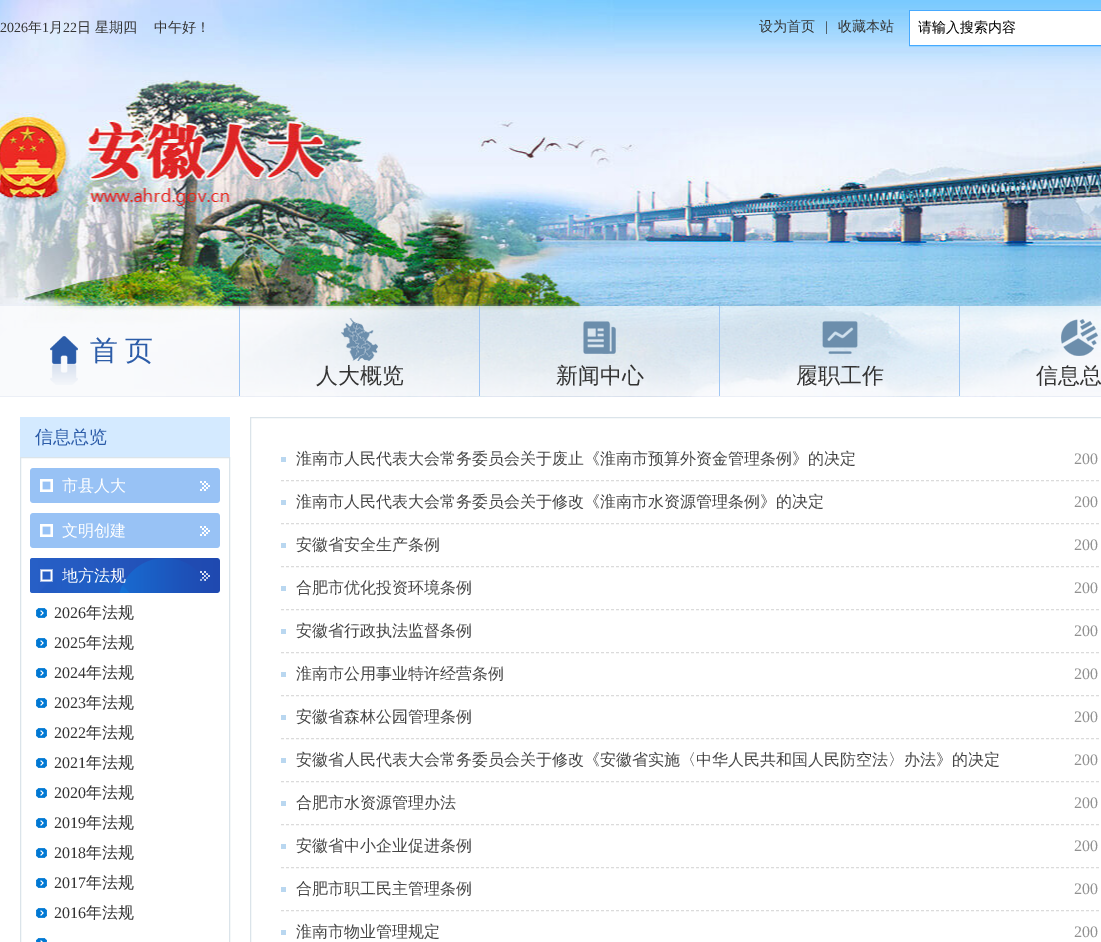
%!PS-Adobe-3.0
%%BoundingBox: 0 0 1101 942
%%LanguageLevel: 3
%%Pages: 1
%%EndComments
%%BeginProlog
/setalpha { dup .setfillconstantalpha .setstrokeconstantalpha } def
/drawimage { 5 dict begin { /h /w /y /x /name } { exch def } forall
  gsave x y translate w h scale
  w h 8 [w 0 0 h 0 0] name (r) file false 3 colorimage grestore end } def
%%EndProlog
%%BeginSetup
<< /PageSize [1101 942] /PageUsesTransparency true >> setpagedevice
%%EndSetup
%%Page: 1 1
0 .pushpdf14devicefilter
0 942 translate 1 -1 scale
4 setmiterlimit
1 setgray
0 0 1101 942 rectfill
(images/1.raw) 0 0 1101 397 drawimage
0.275 0.667 1 setrgbcolor
909.5 10.5 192 35 rectstroke
1 setgray
910 11 191 34 rectfill
0.67 setalpha
0 306 1101 90 rectfill
1 setalpha
(images/2.raw) 50 336 28 49 drawimage
0.631 0.78 0.953 setrgbcolor
239 306 1 90 rectfill
(images/3.raw) 341 318 37 43 drawimage
479 306 1 90 rectfill
(images/4.raw) 583 321 33 33 drawimage
719 306 1 90 rectfill
(images/5.raw) 822 321 36 33 drawimage
959 306 1 90 rectfill
(images/6.raw) 1061 319 37 37 drawimage
0.831 0.918 1 setrgbcolor
20 417 210 40 rectfill
0.859 0.894 0.918 setrgbcolor
20.5 457.5 209 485 rectstroke
(images/7.raw) 30 468 190 35 drawimage
(images/7.raw) 30 513 190 35 drawimage
(images/8.raw) 30 558 190 35 drawimage
(images/9.raw) 36 608 11 10 drawimage
(images/9.raw) 36 638 11 10 drawimage
(images/9.raw) 36 668 11 10 drawimage
(images/9.raw) 36 698 11 10 drawimage
(images/9.raw) 36 728 11 10 drawimage
(images/9.raw) 36 758 11 10 drawimage
(images/9.raw) 36 788 11 10 drawimage
(images/9.raw) 36 818 11 10 drawimage
(images/9.raw) 36 848 11 10 drawimage
(images/9.raw) 36 878 11 10 drawimage
(images/9.raw) 36 908 11 10 drawimage
(images/10.raw) 36 938 11 4 drawimage
250.5 417.5 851 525 rectstroke
0.725 0.843 0.941 setrgbcolor
281 457 5 5 rectfill
0.859 setgray
[3 2] 0 setdash
newpath 281 480.5 moveto 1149 480.5 lineto stroke
0.725 0.843 0.941 setrgbcolor
281 500 5 5 rectfill
0.859 setgray
newpath 281 523.5 moveto 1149 523.5 lineto stroke
0.725 0.843 0.941 setrgbcolor
281 543 5 5 rectfill
0.859 setgray
newpath 281 566.5 moveto 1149 566.5 lineto stroke
0.725 0.843 0.941 setrgbcolor
281 586 5 5 rectfill
0.859 setgray
newpath 281 609.5 moveto 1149 609.5 lineto stroke
0.725 0.843 0.941 setrgbcolor
281 629 5 5 rectfill
0.859 setgray
newpath 281 652.5 moveto 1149 652.5 lineto stroke
0.725 0.843 0.941 setrgbcolor
281 672 5 5 rectfill
0.859 setgray
newpath 281 695.5 moveto 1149 695.5 lineto stroke
0.725 0.843 0.941 setrgbcolor
281 715 5 5 rectfill
0.859 setgray
newpath 281 738.5 moveto 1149 738.5 lineto stroke
0.725 0.843 0.941 setrgbcolor
281 758 5 5 rectfill
0.859 setgray
newpath 281 781.5 moveto 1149 781.5 lineto stroke
0.725 0.843 0.941 setrgbcolor
281 801 5 5 rectfill
0.859 setgray
newpath 281 824.5 moveto 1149 824.5 lineto stroke
0.725 0.843 0.941 setrgbcolor
281 844 5 5 rectfill
0.859 setgray
newpath 281 867.5 moveto 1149 867.5 lineto stroke
0.725 0.843 0.941 setrgbcolor
281 887 5 5 rectfill
0.859 setgray
newpath 281 910.5 moveto 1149 910.5 lineto stroke
0.725 0.843 0.941 setrgbcolor
281 930 5 5 rectfill
/LiberationSerif-Regular [14 0 0 -14 0 0] selectfont
0.2 setgray
0 32 moveto (2026) show
/WenQuanYiZenHei-Medium [14 0 0 -14 0 0] selectfont
28 32 moveto (年) show
/LiberationSerif-Regular [14 0 0 -14 0 0] selectfont
42 32 moveto (1) show
/WenQuanYiZenHei-Medium [14 0 0 -14 0 0] selectfont
49 32 moveto (月) show
/LiberationSerif-Regular [14 0 0 -14 0 0] selectfont
63 32 moveto (22) show
/WenQuanYiZenHei-Medium [14 0 0 -14 0 0] selectfont
77 32 moveto (日) show
95 32 moveto (星期四) show
154 32 moveto (中午好！) show
759 31 moveto (设为首页) show
/LiberationSerif-Regular [14 0 0 -14 0 0] selectfont
825 31 moveto (|) show
/WenQuanYiZenHei-Medium [14 0 0 -14 0 0] selectfont
838 31 moveto (收藏本站) show
0 setgray
918 32 moveto (请输入搜索内容) show
/WenQuanYiZenHei-Medium [28 0 0 -28 0 0] selectfont
0.173 0.361 0.659 setrgbcolor
90 360 moveto -1 0 32 (首 页) widthshow
/WenQuanYiZenHei-Medium [22 0 0 -22 0 0] selectfont
0.2 setgray
316 383 moveto (人大概览) show
556 383 moveto (新闻中心) show
796 383 moveto (履职工作) show
1036 383 moveto (信息总) show
/WenQuanYiZenHei-Medium [18 0 0 -18 0 0] selectfont
0.173 0.361 0.659 setrgbcolor
35 443 moveto (信息总览) show
/WenQuanYiZenHei-Medium [16 0 0 -16 0 0] selectfont
1 setgray
62 491 moveto (市县人大) show
62 536 moveto (文明创建) show
62 581 moveto (地方法规) show
/LiberationSerif-Regular [16 0 0 -16 0 0] selectfont
0.2 setgray
54 618 moveto (2026) show
/WenQuanYiZenHei-Medium [16 0 0 -16 0 0] selectfont
86 618 moveto (年法规) show
/LiberationSerif-Regular [16 0 0 -16 0 0] selectfont
54 648 moveto (2025) show
/WenQuanYiZenHei-Medium [16 0 0 -16 0 0] selectfont
86 648 moveto (年法规) show
/LiberationSerif-Regular [16 0 0 -16 0 0] selectfont
54 678 moveto (2024) show
/WenQuanYiZenHei-Medium [16 0 0 -16 0 0] selectfont
86 678 moveto (年法规) show
/LiberationSerif-Regular [16 0 0 -16 0 0] selectfont
54 708 moveto (2023) show
/WenQuanYiZenHei-Medium [16 0 0 -16 0 0] selectfont
86 708 moveto (年法规) show
/LiberationSerif-Regular [16 0 0 -16 0 0] selectfont
54 738 moveto (2022) show
/WenQuanYiZenHei-Medium [16 0 0 -16 0 0] selectfont
86 738 moveto (年法规) show
/LiberationSerif-Regular [16 0 0 -16 0 0] selectfont
54 768 moveto (2021) show
/WenQuanYiZenHei-Medium [16 0 0 -16 0 0] selectfont
86 768 moveto (年法规) show
/LiberationSerif-Regular [16 0 0 -16 0 0] selectfont
54 798 moveto (2020) show
/WenQuanYiZenHei-Medium [16 0 0 -16 0 0] selectfont
86 798 moveto (年法规) show
/LiberationSerif-Regular [16 0 0 -16 0 0] selectfont
54 828 moveto (2019) show
/WenQuanYiZenHei-Medium [16 0 0 -16 0 0] selectfont
86 828 moveto (年法规) show
/LiberationSerif-Regular [16 0 0 -16 0 0] selectfont
54 858 moveto (2018) show
/WenQuanYiZenHei-Medium [16 0 0 -16 0 0] selectfont
86 858 moveto (年法规) show
/LiberationSerif-Regular [16 0 0 -16 0 0] selectfont
54 888 moveto (2017) show
/WenQuanYiZenHei-Medium [16 0 0 -16 0 0] selectfont
86 888 moveto (年法规) show
/LiberationSerif-Regular [16 0 0 -16 0 0] selectfont
54 918 moveto (2016) show
/WenQuanYiZenHei-Medium [16 0 0 -16 0 0] selectfont
86 918 moveto (年法规) show
0.271 setgray
296 464 moveto (淮南市人民代表大会常务委员会关于废止《淮南市预算外资金管理条例》的决定) show
/LiberationSerif-Regular [16 0 0 -16 0 0] selectfont
0.569 setgray
1074 464 moveto (200) show
/WenQuanYiZenHei-Medium [16 0 0 -16 0 0] selectfont
0.271 setgray
296 507 moveto (淮南市人民代表大会常务委员会关于修改《淮南市水资源管理条例》的决定) show
/LiberationSerif-Regular [16 0 0 -16 0 0] selectfont
0.569 setgray
1074 507 moveto (200) show
/WenQuanYiZenHei-Medium [16 0 0 -16 0 0] selectfont
0.271 setgray
296 550 moveto (安徽省安全生产条例) show
/LiberationSerif-Regular [16 0 0 -16 0 0] selectfont
0.569 setgray
1074 550 moveto (200) show
/WenQuanYiZenHei-Medium [16 0 0 -16 0 0] selectfont
0.271 setgray
296 593 moveto (合肥市优化投资环境条例) show
/LiberationSerif-Regular [16 0 0 -16 0 0] selectfont
0.569 setgray
1074 593 moveto (200) show
/WenQuanYiZenHei-Medium [16 0 0 -16 0 0] selectfont
0.271 setgray
296 636 moveto (安徽省行政执法监督条例) show
/LiberationSerif-Regular [16 0 0 -16 0 0] selectfont
0.569 setgray
1074 636 moveto (200) show
/WenQuanYiZenHei-Medium [16 0 0 -16 0 0] selectfont
0.271 setgray
296 679 moveto (淮南市公用事业特许经营条例) show
/LiberationSerif-Regular [16 0 0 -16 0 0] selectfont
0.569 setgray
1074 679 moveto (200) show
/WenQuanYiZenHei-Medium [16 0 0 -16 0 0] selectfont
0.271 setgray
296 722 moveto (安徽省森林公园管理条例) show
/LiberationSerif-Regular [16 0 0 -16 0 0] selectfont
0.569 setgray
1074 722 moveto (200) show
/WenQuanYiZenHei-Medium [16 0 0 -16 0 0] selectfont
0.271 setgray
296 765 moveto (安徽省人民代表大会常务委员会关于修改《安徽省实施〈中华人民共和国人民防空法〉办法》的决定) show
/LiberationSerif-Regular [16 0 0 -16 0 0] selectfont
0.569 setgray
1074 765 moveto (200) show
/WenQuanYiZenHei-Medium [16 0 0 -16 0 0] selectfont
0.271 setgray
296 808 moveto (合肥市水资源管理办法) show
/LiberationSerif-Regular [16 0 0 -16 0 0] selectfont
0.569 setgray
1074 808 moveto (200) show
/WenQuanYiZenHei-Medium [16 0 0 -16 0 0] selectfont
0.271 setgray
296 851 moveto (安徽省中小企业促进条例) show
/LiberationSerif-Regular [16 0 0 -16 0 0] selectfont
0.569 setgray
1074 851 moveto (200) show
/WenQuanYiZenHei-Medium [16 0 0 -16 0 0] selectfont
0.271 setgray
296 894 moveto (合肥市职工民主管理条例) show
/LiberationSerif-Regular [16 0 0 -16 0 0] selectfont
0.569 setgray
1074 894 moveto (200) show
/WenQuanYiZenHei-Medium [16 0 0 -16 0 0] selectfont
0.271 setgray
296 937 moveto (淮南市物业管理规定) show
/LiberationSerif-Regular [16 0 0 -16 0 0] selectfont
0.569 setgray
1074 937 moveto (200) show
.poppdf14devicefilter showpage
%%EOF
